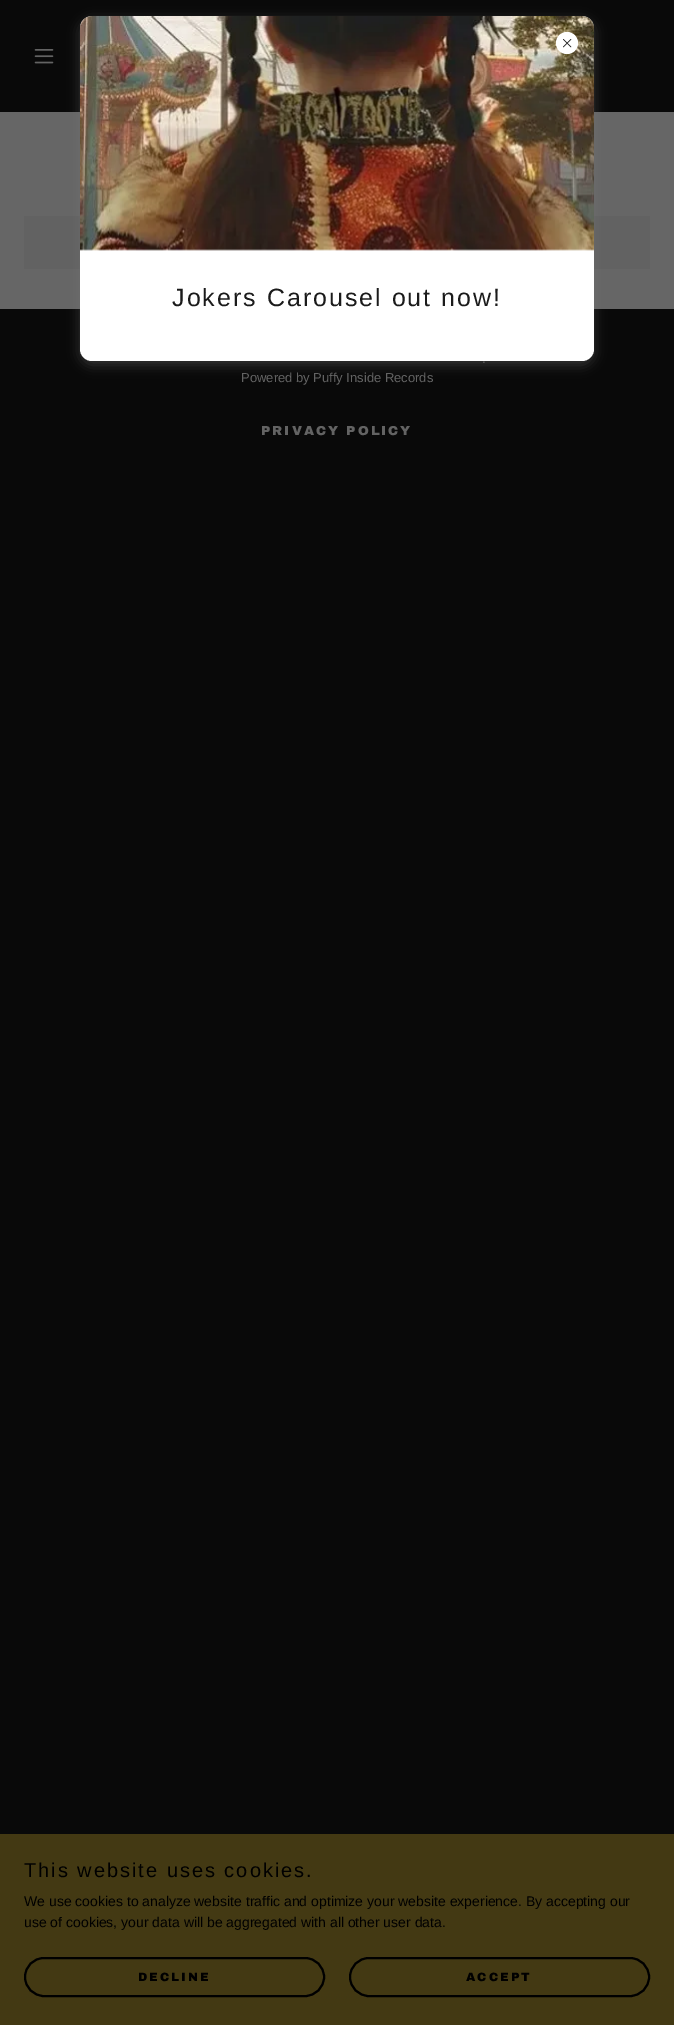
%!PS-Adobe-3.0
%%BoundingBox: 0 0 674 2025
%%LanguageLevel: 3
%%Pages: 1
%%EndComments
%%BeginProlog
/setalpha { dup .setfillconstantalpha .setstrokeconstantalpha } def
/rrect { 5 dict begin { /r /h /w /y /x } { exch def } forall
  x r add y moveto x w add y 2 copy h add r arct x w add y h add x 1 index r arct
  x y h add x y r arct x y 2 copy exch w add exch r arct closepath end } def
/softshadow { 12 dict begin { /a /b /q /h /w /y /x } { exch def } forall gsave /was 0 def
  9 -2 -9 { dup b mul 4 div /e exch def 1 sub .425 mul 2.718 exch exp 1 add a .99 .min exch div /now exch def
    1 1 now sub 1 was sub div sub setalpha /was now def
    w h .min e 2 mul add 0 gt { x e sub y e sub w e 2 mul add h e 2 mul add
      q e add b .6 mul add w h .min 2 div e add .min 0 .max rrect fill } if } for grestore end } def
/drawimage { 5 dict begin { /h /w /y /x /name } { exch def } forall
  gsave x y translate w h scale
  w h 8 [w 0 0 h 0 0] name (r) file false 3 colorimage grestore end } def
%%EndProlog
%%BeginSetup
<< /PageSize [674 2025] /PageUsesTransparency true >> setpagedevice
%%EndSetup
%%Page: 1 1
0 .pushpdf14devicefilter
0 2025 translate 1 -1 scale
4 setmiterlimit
0.035 setgray
0 0 674 2025 rectfill
(images/1.raw) 34 49 20 15 drawimage
0.4 setgray
0 112 674 197 rectfill
0.384 setgray
24 216 626 53 rectfill
0.459 setgray
80 20 514 345 12 6 0.4 softshadow
1 setgray
80 16 514 345 12 rrect fill
(images/3.raw) 80 16 514 235 drawimage
newpath 567 43 11 0 360 arc closepath fill
(images/2.raw) 563 39 9 9 drawimage
0.263 0.224 0.075 setrgbcolor
0 1834 674 191 rectfill
0 setgray
2 setlinewidth
25 1958 299 38 19 rrect stroke
350 1958 299 38 19 rrect stroke
/LiberationSans-Regular [25 0 0 -25 0 0] selectfont
0.106 setgray
172 306 moveto 2 0 (Jokers Carousel out now!) ashow
/LiberationSans-Regular [13 0 0 -13 0 0] selectfont
0.388 setgray
482 363 moveto (.) show
241 382 moveto (Powered by Puffy Inside Records) show
/ArchivoBlack-Black [13 0 0 -13 0 0] selectfont
261 435 moveto 2 0 (PRIVACY POLICY) ashow
/LiberationSans-Regular [20 0 0 -20 0 0] selectfont
0 setgray
24 1877 moveto 2 0 (This website uses cookies.) ashow
/LiberationSans-Regular [14 0 0 -14 0 0] selectfont
24 1906 moveto (We use cookies to analyze website traffic and optimize your website experience. By accepting our) show
24 1927 moveto (use of cookies, your data will be aggregated with all other user data.) show
/ArchivoBlack-Black [12 0 0 -12 0 0] selectfont
138 1981 moveto 2 0 (DECLINE) ashow
466 1981 moveto 2 0 (ACCEPT) ashow
.poppdf14devicefilter showpage
%%EOF
